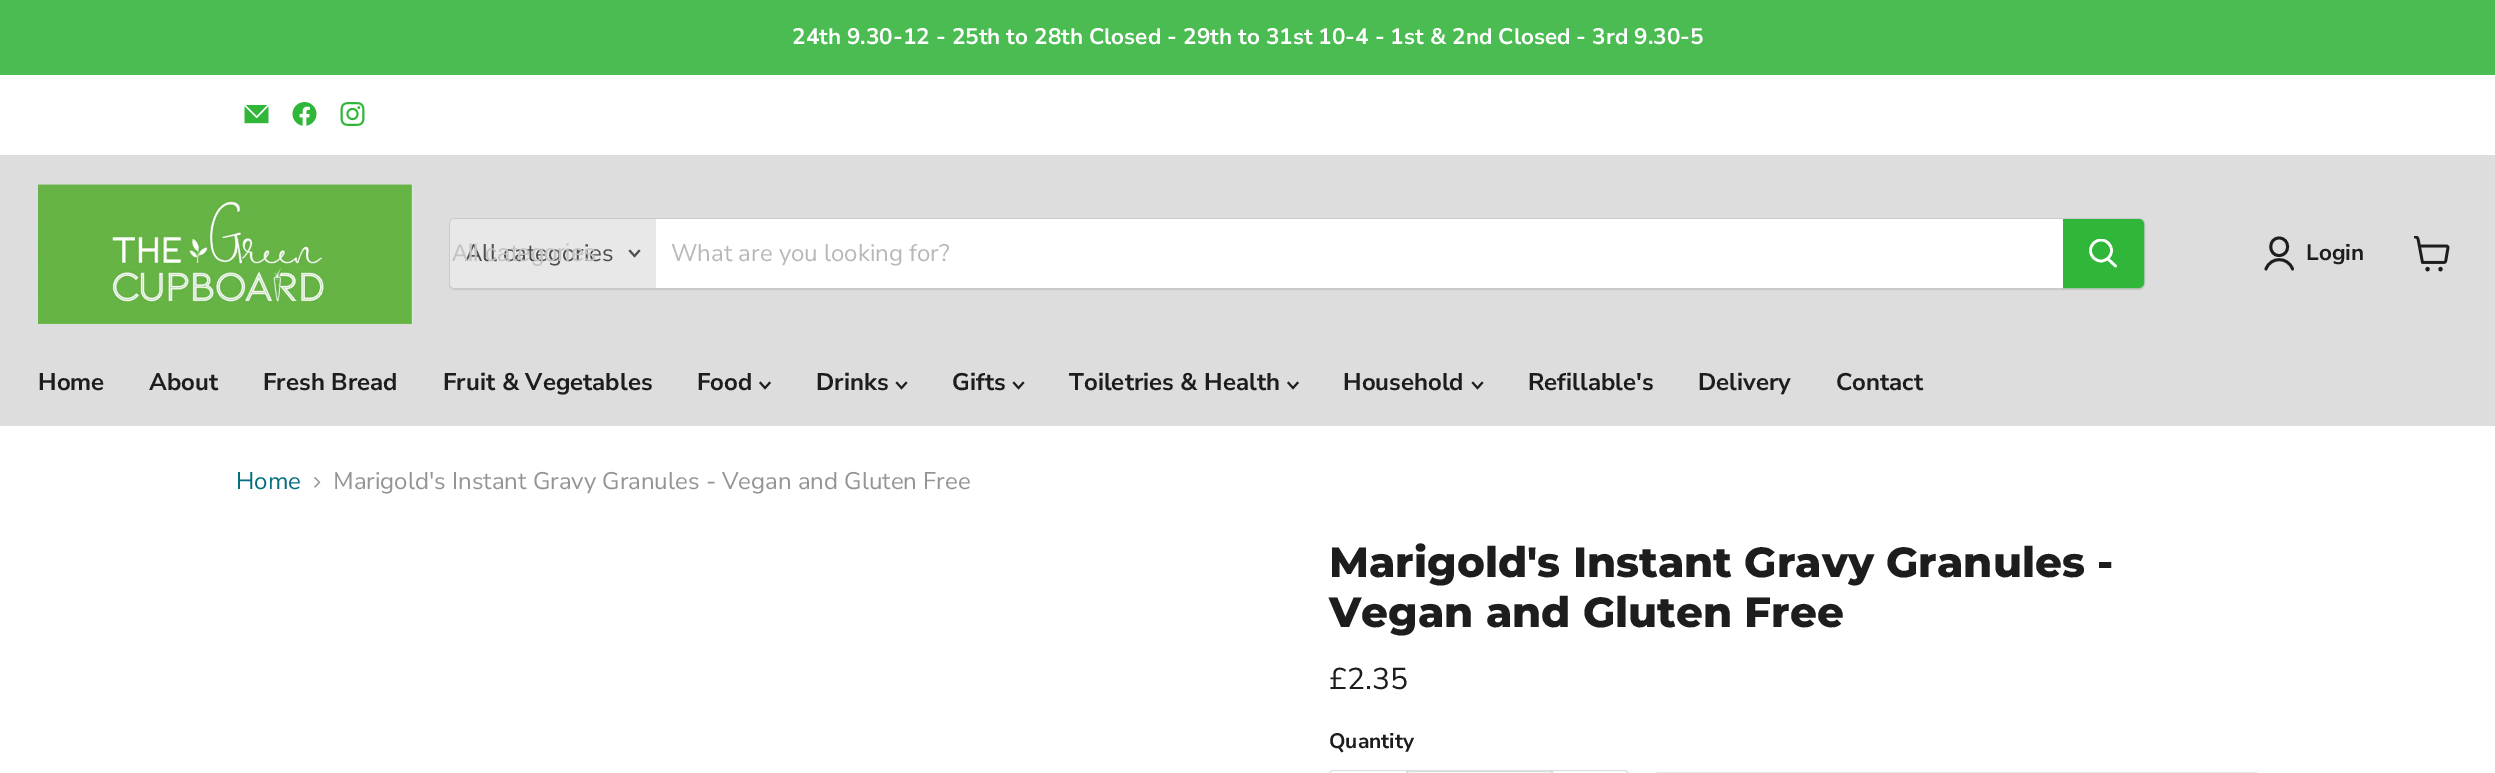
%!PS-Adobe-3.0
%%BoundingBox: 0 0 2495 773
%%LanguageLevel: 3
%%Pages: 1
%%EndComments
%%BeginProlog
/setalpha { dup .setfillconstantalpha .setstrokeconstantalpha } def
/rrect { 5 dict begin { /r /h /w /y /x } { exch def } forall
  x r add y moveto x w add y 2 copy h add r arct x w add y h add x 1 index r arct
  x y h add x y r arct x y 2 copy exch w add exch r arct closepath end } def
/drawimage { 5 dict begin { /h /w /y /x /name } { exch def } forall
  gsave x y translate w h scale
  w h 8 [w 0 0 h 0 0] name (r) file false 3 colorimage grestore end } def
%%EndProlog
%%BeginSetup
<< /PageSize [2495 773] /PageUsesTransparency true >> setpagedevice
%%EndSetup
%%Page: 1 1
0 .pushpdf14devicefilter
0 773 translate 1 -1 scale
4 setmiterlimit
1 setgray
0 0 2495 773 rectfill
0.29 0.737 0.322 setrgbcolor
0 0 2495 75 rectfill
(images/1.raw) 244 105 25 19 drawimage
(images/2.raw) 292 102 25 24 drawimage
(images/3.raw) 340 102 25 24 drawimage
0.867 setgray
0 155 2495 271 rectfill
(images/4.raw) 38 184 375 140 drawimage
0.2 setalpha
0.502 setgray
2 setlinewidth
450 219 1694 70 5 rrect stroke
1 setalpha
0.91 setgray
newpath 455 219 moveto 656 219 lineto 656 288 lineto 455 288 lineto 452 288 450 286 450 283 curveto 450 224 lineto 450 221 452 219 455 219 curveto closepath fill
0.302 setgray
1.9 setlinewidth
2 setlinecap
newpath 634.5 256 moveto 639 251 lineto 634.5 256 moveto 630 251 lineto stroke
1 setgray
656 219 1407 69 rectfill
0.188 0.714 0.224 setrgbcolor
newpath 2064 220 moveto 2139 220 lineto 2141 220 2143 222 2143 224 curveto 2143 283 lineto 2143 285 2141 287 2139 287 curveto 2064 287 lineto closepath gsave fill grestore
2 setlinewidth
0 setlinecap
stroke
1 setgray
2.6 setlinewidth
1 setlinecap
newpath 2115.5 266 moveto 2108 259 lineto stroke
gsave
2088 239 30 31 rectclip
0 setlinecap
newpath 2101 250.5 10.5 0 360 arc closepath stroke
grestore
0.114 setgray
2.8 setlinewidth
1 setlinejoin
newpath 2279 255.5 moveto 2290.5 255.5 2290.5 238 2279 238 curveto 2268 238 2268 255.5 2279 255.5 curveto closepath 2292.5 269 moveto 2288 256.5 2270.5 256.5 2266 269 curveto stroke
(images/5.raw) 2414 236 36 36 drawimage
1.9 setlinewidth
2 setlinecap
0 setlinejoin
newpath 765 388 moveto 769.5 383 lineto 765 388 moveto 760.5 383 lineto stroke
newpath 901.5 388 moveto 906 383 lineto 901.5 388 moveto 897 383 lineto stroke
newpath 1018.5 388 moveto 1023 383 lineto 1018.5 388 moveto 1014 383 lineto stroke
newpath 1293 388 moveto 1297.5 383 lineto 1293 388 moveto 1288.5 383 lineto stroke
newpath 1477.5 388 moveto 1482 383 lineto 1477.5 388 moveto 1473 383 lineto stroke
(images/6.raw) 314 477 7 11 drawimage
0.867 setgray
newpath 1334 770 moveto 1406 770 lineto 1406 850 lineto 1334 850 lineto 1331 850 1329 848 1329 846 curveto 1329 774 lineto 1329 772 1331 770 1334 770 curveto closepath 1334 771 moveto 1406 771 lineto 1406 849 lineto 1334 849 lineto 1332 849 1330 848 1330 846 curveto 1330 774 lineto 1330 772 1332 771 1334 771 curveto closepath eofill
2 setlinewidth
0 setlinecap
1407 771 145 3 rectstroke
newpath 1552 770 moveto 1624 770 lineto 1627 770 1629 772 1629 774 curveto 1629 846 lineto 1629 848 1627 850 1624 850 curveto 1552 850 lineto closepath 1552 771 moveto 1624 771 lineto 1626 771 1628 772 1628 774 curveto 1628 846 lineto 1628 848 1626 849 1624 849 curveto 1552 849 lineto closepath eofill
1654 771 606 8 4 rrect gsave fill grestore
1 setgray
stroke
/NunitoSans-Bold [22.5 0 0 -22.5 0 0] selectfont
792 44 moveto (24th 9.30-12 - 25th to 28th Closed - 29th to 31st 10-4 - 1st & 2nd Closed - 3rd 9.30-5) show
/NunitoSans-Regular [24 0 0 -24 0 0] selectfont
0.302 setgray
465 261 moveto (All categories) show
/LiberationSans-Regular [24 0 0 -24 0 0] selectfont
0.765 setgray
452 261 moveto (All categories) show
/NunitoSans-Regular [24 0 0 -24 0 0] selectfont
0.722 setgray
671 261 moveto (What are you looking for?) show
/NunitoSans-Bold [22.5 0 0 -22.5 0 0] selectfont
0.114 setgray
2306 260 moveto (Login) show
/NunitoSans-Bold [24 0 0 -24 0 0] selectfont
38 390 moveto (Home) show
149 390 moveto (About) show
263 390 moveto (Fresh Bread) show
443 390 moveto (Fruit & Vegetables) show
697 390 moveto (Food) show
816 390 moveto (Drinks) show
952 390 moveto (Gifts) show
1069 390 moveto (Toiletries & Health) show
1343 390 moveto (Household) show
1528 390 moveto (Refillable's) show
1698 390 moveto (Delivery) show
1836 390 moveto (Contact) show
/NunitoSans-Regular [24 0 0 -24 0 0] selectfont
0.016 0.431 0.51 setrgbcolor
236 489 moveto (Home) show
0.58 setgray
333 489 moveto (Marigold's Instant Gravy Granules - Vegan and Gluten Free) show
/Montserrat-ExtraBold [42 0 0 -42 0 0] selectfont
0.114 setgray
1329 577 moveto (Marigold's Instant Gravy Granules -) show
1329 627 moveto (Vegan and Gluten Free) show
/NunitoSans-Regular [30 0 0 -30 0 0] selectfont
1329 689 moveto (£2.35) show
/NunitoSans-Bold [21 0 0 -21 0 0] selectfont
1329 748 moveto (Quantity) show
.poppdf14devicefilter showpage
%%EOF
